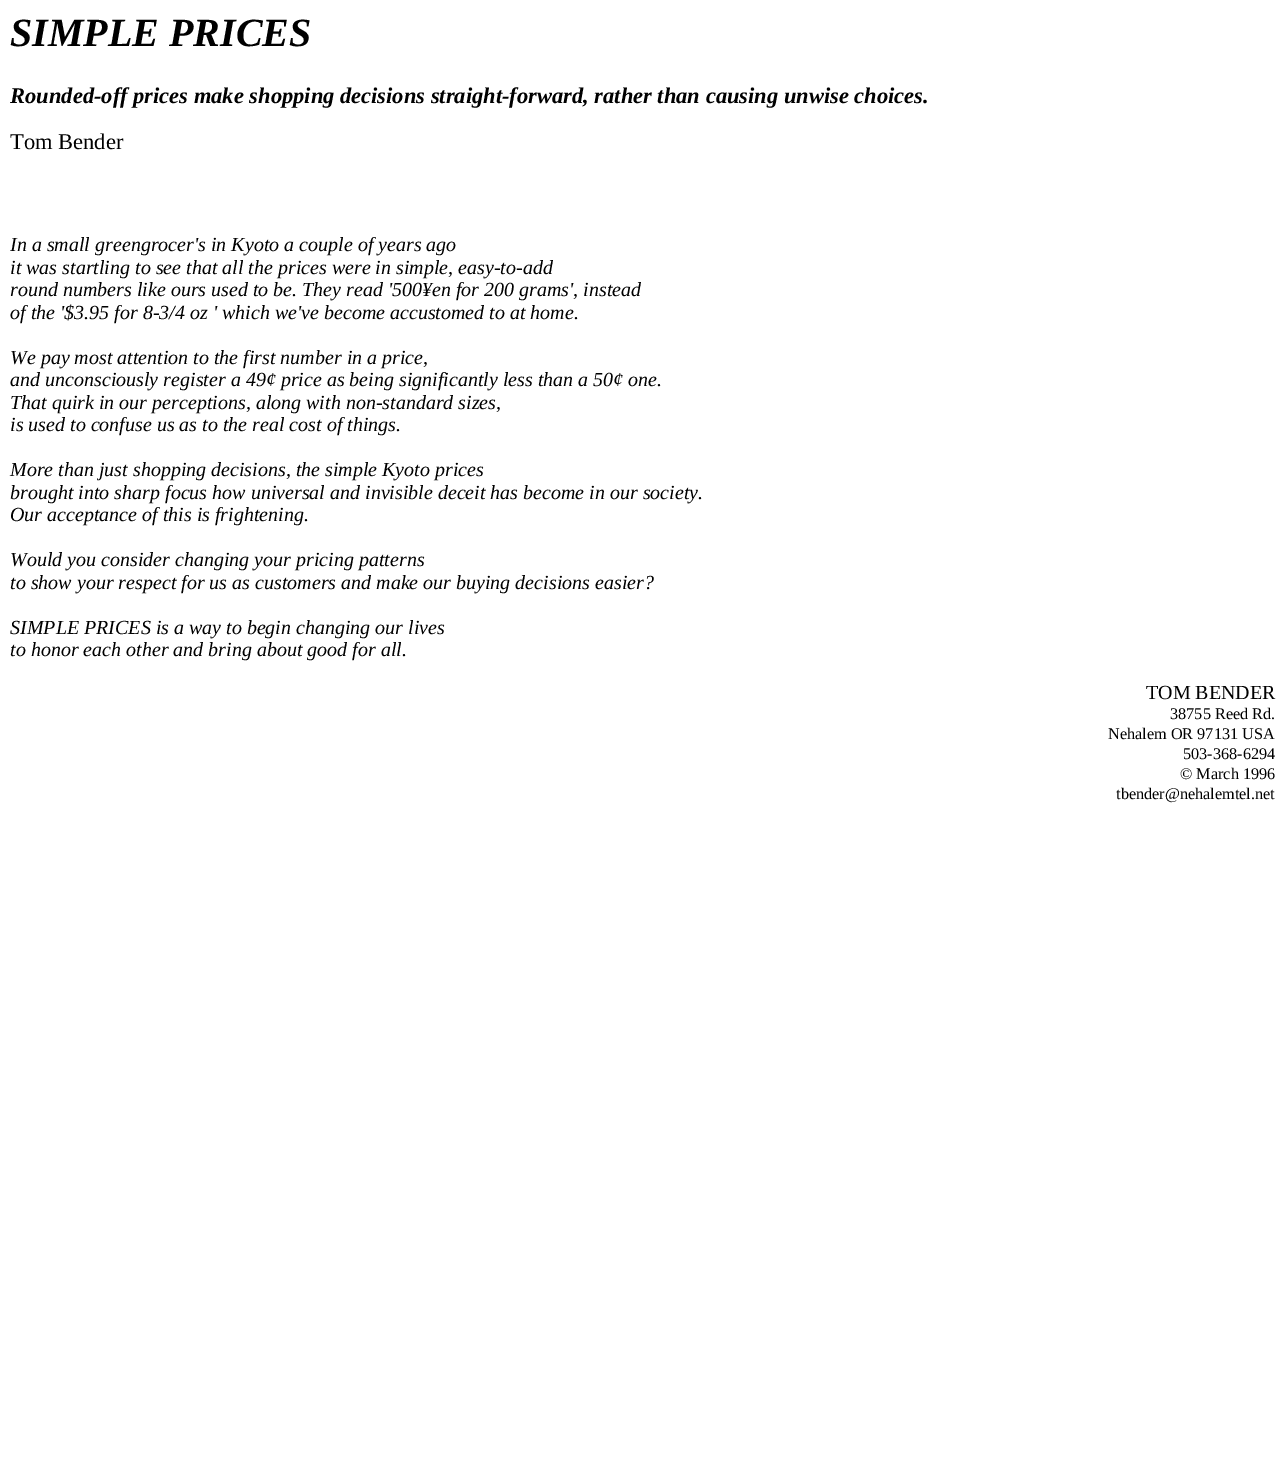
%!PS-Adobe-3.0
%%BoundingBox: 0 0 1284 1468
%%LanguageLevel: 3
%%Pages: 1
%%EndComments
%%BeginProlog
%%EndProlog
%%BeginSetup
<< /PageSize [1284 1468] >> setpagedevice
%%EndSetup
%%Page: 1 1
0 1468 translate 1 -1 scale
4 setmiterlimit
1 setgray
0 0 1284 1468 rectfill
/LiberationSerif-BoldItalic [40 0 0 -40 0 0] selectfont
0 setgray
10 46 moveto (SIMPLE PRICES) show
/LiberationSerif-BoldItalic [22.5 0 0 -22.5 0 0] selectfont
10 103 moveto (Rounded-off prices make shopping decisions straight-forward, rather than causing unwise choices.) show
/LiberationSerif-Regular [22.5 0 0 -22.5 0 0] selectfont
10 149 moveto (Tom Bender) show
/LiberationSerif-Italic [20 0 0 -20 0 0] selectfont
10 251 moveto (In a small greengrocer's in Kyoto a couple of years ago) show
10 274 moveto (it was startling to see that all the prices were in simple, easy-to-add) show
10 296 moveto (round numbers like ours used to be. They read '500¥en for 200 grams', instead) show
10 319 moveto (of the '$3.95 for 8-3/4 oz ' which we've become accustomed to at home.) show
10 364 moveto (We pay most attention to the first number in a price,) show
10 386 moveto (and unconsciously register a 49¢ price as being significantly less than a 50¢ one.) show
10 409 moveto (That quirk in our perceptions, along with non-standard sizes,) show
10 431 moveto (is used to confuse us as to the real cost of things.) show
10 476 moveto (More than just shopping decisions, the simple Kyoto prices) show
10 499 moveto (brought into sharp focus how universal and invisible deceit has become in our society.) show
10 521 moveto (Our acceptance of this is frightening.) show
10 566 moveto (Would you consider changing your pricing patterns) show
10 589 moveto (to show your respect for us as customers and make our buying decisions easier?) show
10 634 moveto (SIMPLE PRICES is a way to begin changing our lives) show
10 656 moveto (to honor each other and bring about good for all.) show
/LiberationSerif-Regular [20 0 0 -20 0 0] selectfont
1146 699 moveto (TOM BENDER) show
/LiberationSerif-Regular [16.25 0 0 -16.25 0 0] selectfont
1170 719 moveto (38755 Reed Rd.) show
1108 739 moveto (Nehalem OR 97131 USA) show
1183 759 moveto (503-368-6294) show
1180 779 moveto (© March 1996) show
1116 799 moveto (tbender@nehalemtel.net) show
showpage
%%EOF
